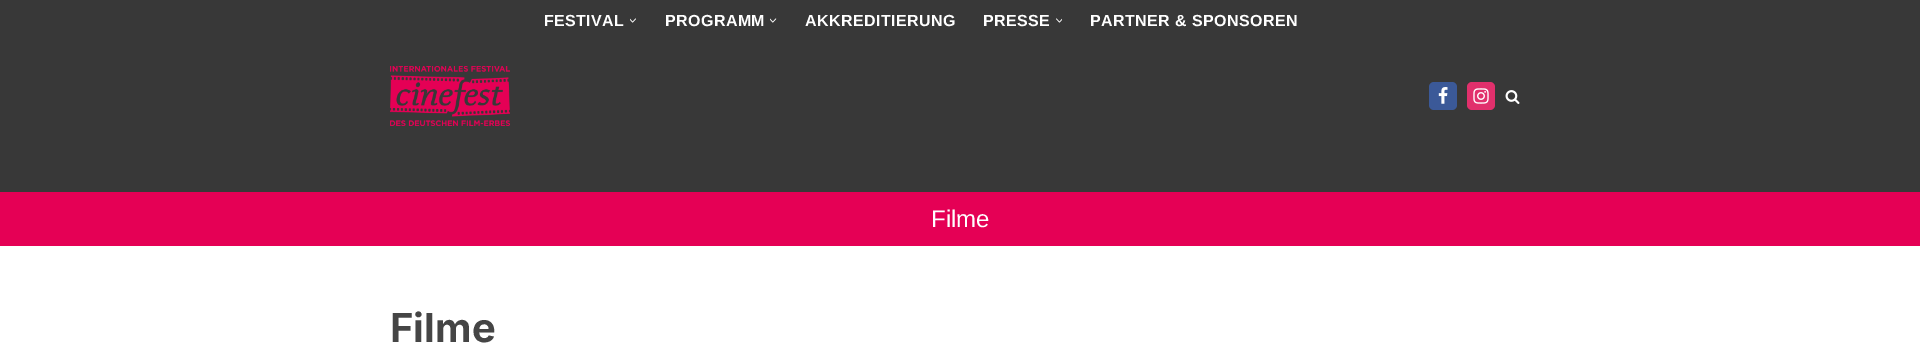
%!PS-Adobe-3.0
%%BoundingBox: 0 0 1920 353
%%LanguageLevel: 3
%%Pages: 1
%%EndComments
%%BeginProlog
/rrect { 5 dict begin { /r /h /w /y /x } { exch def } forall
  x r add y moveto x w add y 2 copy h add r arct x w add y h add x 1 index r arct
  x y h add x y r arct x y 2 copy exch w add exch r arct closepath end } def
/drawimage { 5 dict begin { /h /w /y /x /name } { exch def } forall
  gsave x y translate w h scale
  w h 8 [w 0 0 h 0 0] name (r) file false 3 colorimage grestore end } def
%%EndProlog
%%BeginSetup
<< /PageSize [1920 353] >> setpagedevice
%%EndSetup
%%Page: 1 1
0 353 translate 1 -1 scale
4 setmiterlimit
1 setgray
0 0 1920 353 rectfill
0.22 setgray
0 0 1920 192 rectfill
(images/1.raw) 630 18 6 5 drawimage
(images/2.raw) 770 18 7 5 drawimage
(images/3.raw) 1056 18 6 5 drawimage
(images/4.raw) 390 66 120 60 drawimage
0.231 0.349 0.596 setrgbcolor
1429 82 28 28 5 rrect fill
(images/5.raw) 1438 87 10 17 drawimage
0.882 0.188 0.424 setrgbcolor
1467 82 28 28 5 rrect fill
(images/6.raw) 1473 88 16 16 drawimage
(images/7.raw) 1505 90 15 14 drawimage
0.898 0 0.333 setrgbcolor
0 192 1920 54 rectfill
/LiberationSans-Bold [16 0 0 -16 0 0] selectfont
1 setgray
544 26 moveto 0.4 0 (FESTIVAL) ashow
665 26 moveto 0.4 0 (PROGRAMM) ashow
805 26 moveto 0.4 0 (AKKREDITIERUNG) ashow
983 26 moveto 0.4 0 (PRESSE) ashow
1090 26 moveto 0.4 0 (PARTNER & SPONSOREN) ashow
/LiberationSans-Regular [24 0 0 -24 0 0] selectfont
931 227 moveto (Filme) show
/Inter-Bold [40 0 0 -40 0 0] selectfont
0.271 setgray
390 342 moveto (Filme) show
showpage
%%EOF
